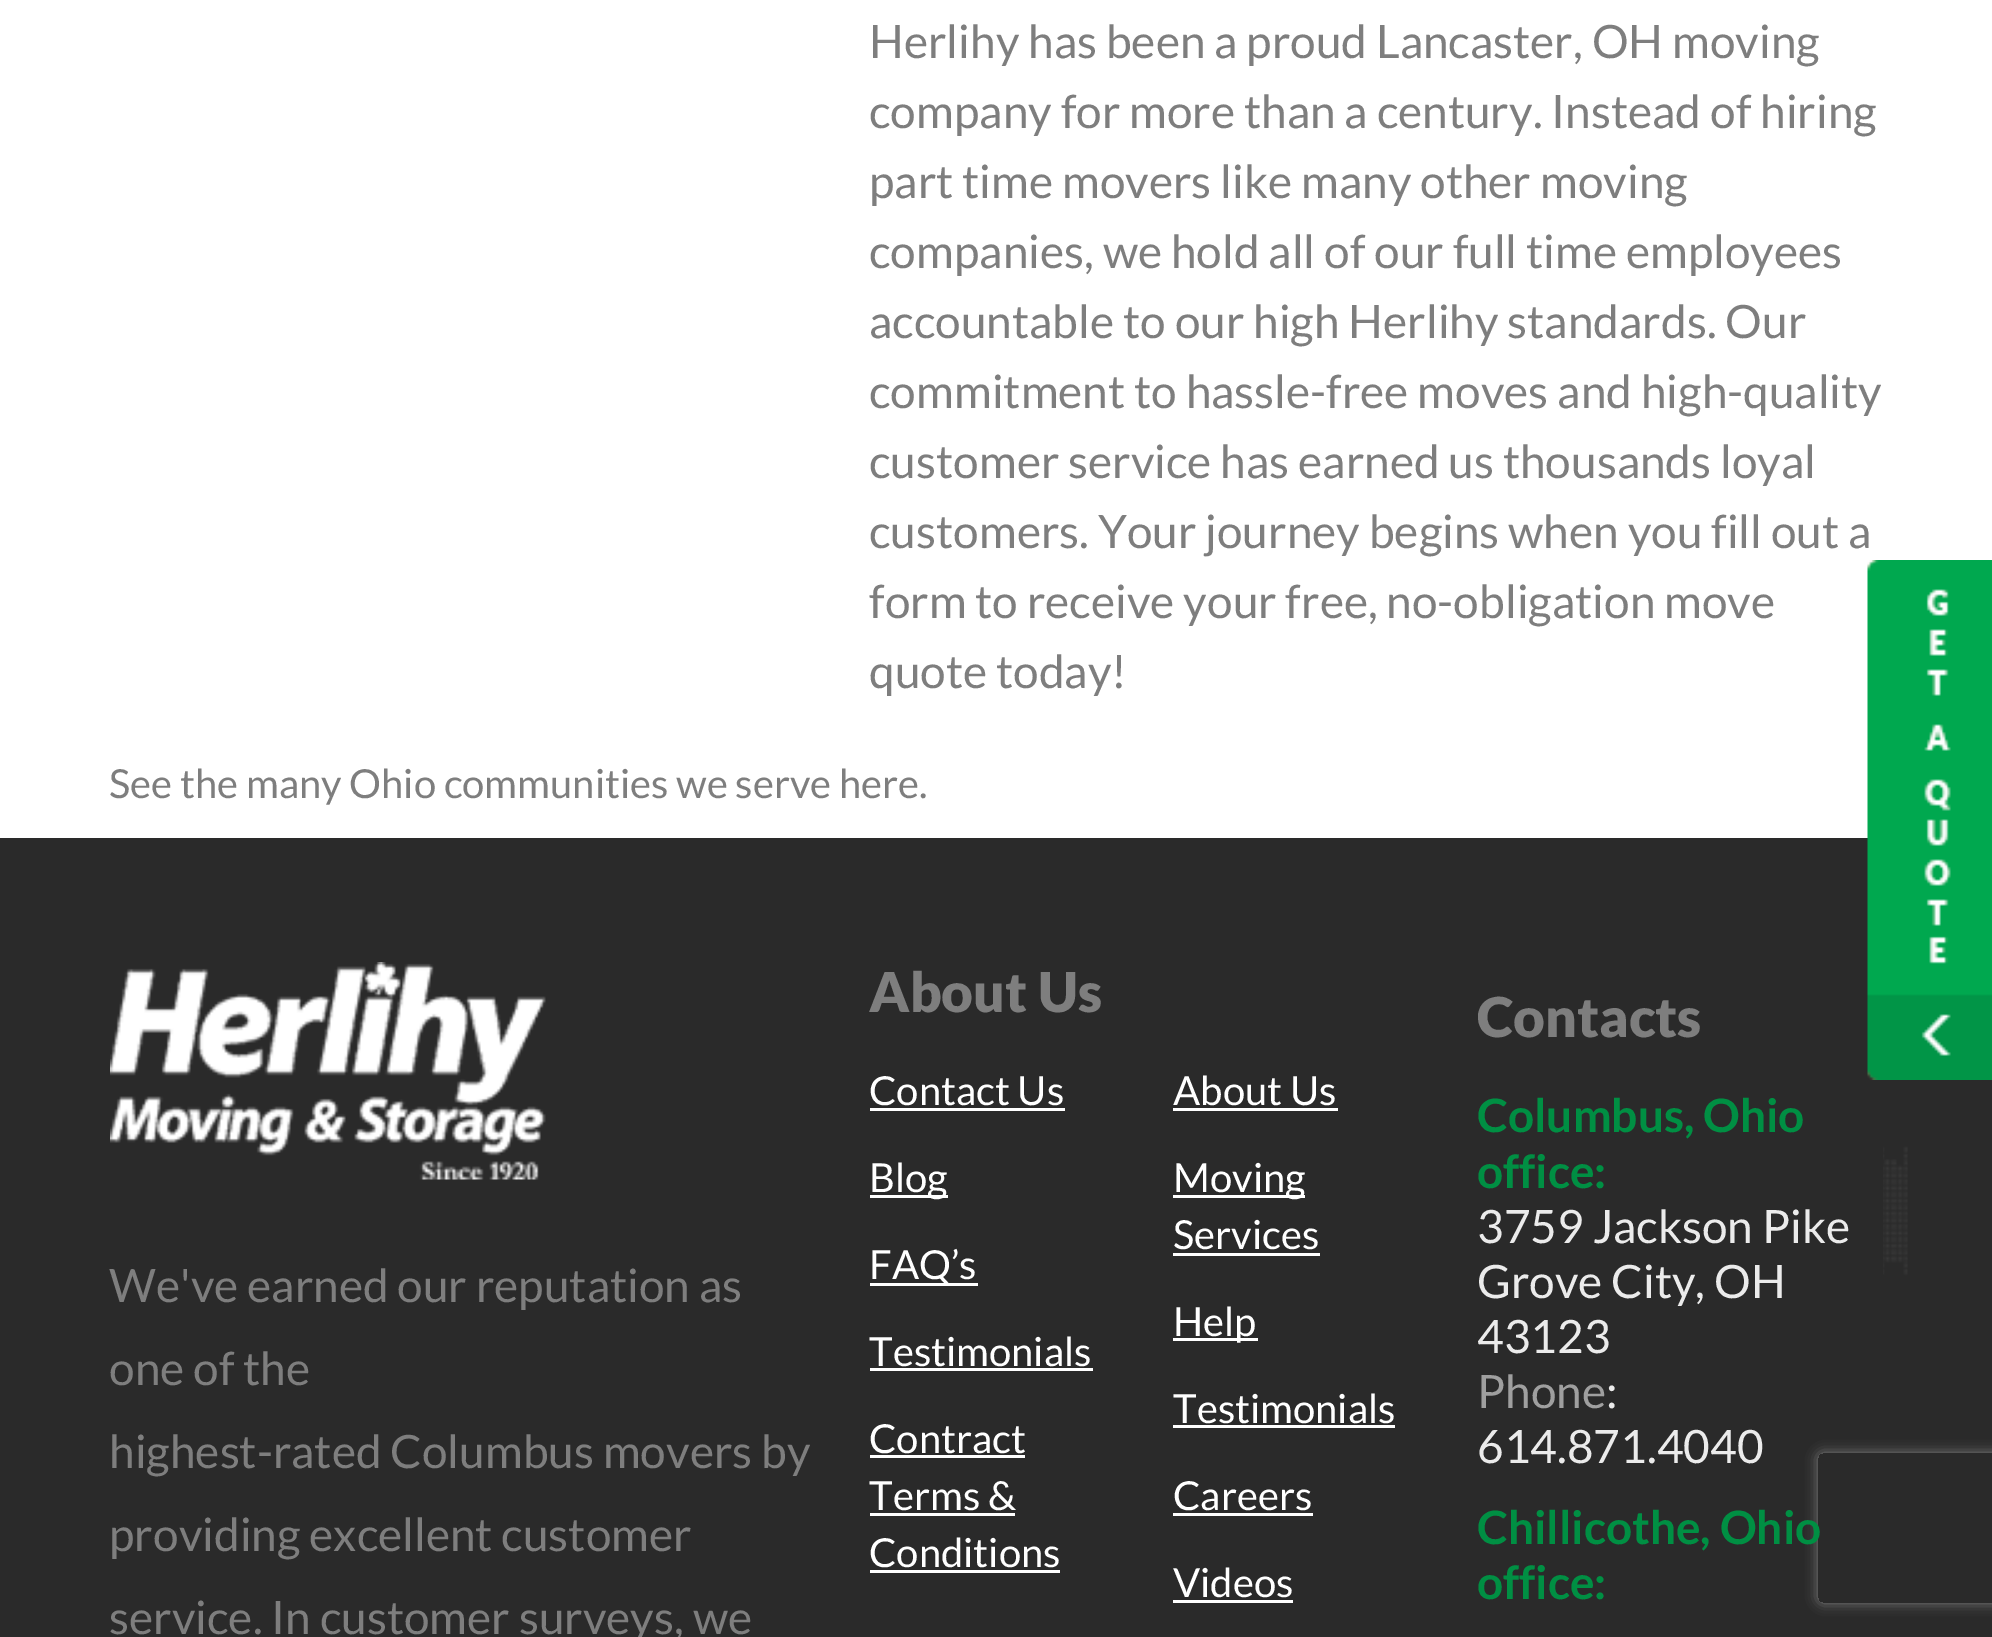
%!PS-Adobe-3.0
%%BoundingBox: 0 0 1992 1637
%%LanguageLevel: 3
%%Pages: 1
%%EndComments
%%BeginProlog
/setalpha { dup .setfillconstantalpha .setstrokeconstantalpha } def
/rrect { 5 dict begin { /r /h /w /y /x } { exch def } forall
  x r add y moveto x w add y 2 copy h add r arct x w add y h add x 1 index r arct
  x y h add x y r arct x y 2 copy exch w add exch r arct closepath end } def
/softshadow { 12 dict begin { /a /b /q /h /w /y /x } { exch def } forall gsave /was 0 def
  9 -2 -9 { dup b mul 4 div /e exch def 1 sub .425 mul 2.718 exch exp 1 add a .99 .min exch div /now exch def
    1 1 now sub 1 was sub div sub setalpha /was now def
    w h .min e 2 mul add 0 gt { x e sub y e sub w e 2 mul add h e 2 mul add
      q e add b .6 mul add w h .min 2 div e add .min 0 .max rrect fill } if } for grestore end } def
/drawimage { 5 dict begin { /h /w /y /x /name } { exch def } forall
  gsave x y translate w h scale
  w h 8 [w 0 0 h 0 0] name (r) file false 3 colorimage grestore end } def
%%EndProlog
%%BeginSetup
<< /PageSize [1992 1637] /PageUsesTransparency true >> setpagedevice
%%EndSetup
%%Page: 1 1
0 .pushpdf14devicefilter
0 1637 translate 1 -1 scale
4 setmiterlimit
1 setgray
0 0 1992 1637 rectfill
0.165 setgray
0 838 1992 799 rectfill
(images/1.raw) 1867 560 125 520 drawimage
(images/2.raw) 110 962 436 218 drawimage
1 setgray
870 1108 195 3 rectfill
870 1195 78 3 rectfill
870 1283 108 3 rectfill
870 1368 223 3 rectfill
870 1455 155 3 rectfill
870 1513 145 3 rectfill
870 1570 190 3 rectfill
1173 1108 165 3 rectfill
1173 1195 132 3 rectfill
1173 1253 147 3 rectfill
1173 1338 85 3 rectfill
1173 1425 222 3 rectfill
1173 1513 140 3 rectfill
1173 1600 120 3 rectfill
(images/3.raw) 1883 1109 25 306 drawimage
gsave
newpath 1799 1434 moveto 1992 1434 lineto 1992 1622 lineto 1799 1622 lineto closepath 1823 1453 moveto 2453 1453 lineto 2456 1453 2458 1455 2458 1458 curveto 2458 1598 lineto 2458 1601 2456 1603 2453 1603 curveto 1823 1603 lineto 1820 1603 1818 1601 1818 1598 curveto 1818 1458 lineto 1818 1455 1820 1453 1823 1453 curveto closepath eoclip newpath
0.502 setgray
1818 1453 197 150 5 6 1 softshadow
grestore
/Lato-Regular [46 0 0 -46 0 0] selectfont
0.494 setgray
869 58 moveto (Herlihy has been a proud Lancaster, OH moving) show
869 128 moveto (company for more than a century. Instead of hiring) show
869 198 moveto (part time movers like many other moving) show
869 268 moveto (companies, we hold all of our full time employees) show
869 338 moveto (accountable to our high Herlihy standards. Our) show
869 408 moveto (commitment to hassle-free moves and high-quality) show
869 478 moveto (customer service has earned us thousands loyal) show
869 548 moveto (customers. Your journey begins when you fill out a) show
869 618 moveto (form to receive your free, no-obligation move) show
869 688 moveto (quote today!) show
/Lato-Regular [40 0 0 -40 0 0] selectfont
109 798 moveto (See the many Ohio communities we serve here.) show
/Lato-Regular [46 0 0 -46 0 0] selectfont
109 1302 moveto (We've earned our reputation as) show
109 1385 moveto (one of the) show
109 1468 moveto (highest-rated Columbus movers by) show
109 1551 moveto (providing excellent customer) show
109 1634 moveto (service. In customer surveys, we) show
/Lato-Black [55 0 0 -55 0 0] selectfont
869 1012 moveto (About Us) show
/Lato-Regular [40 0 0 -40 0 0] selectfont
1 setgray
869 1105 moveto (Contact Us) show
869 1192 moveto (Blog) show
869 1279 moveto (FAQ’s) show
869 1366 moveto (Testimonials) show
869 1453 moveto (Contract) show
869 1510 moveto (Terms &) show
869 1567 moveto (Conditions) show
1173 1105 moveto (About Us) show
1173 1192 moveto (Moving) show
1173 1249 moveto (Services) show
1173 1336 moveto (Help) show
1173 1423 moveto (Testimonials) show
1173 1510 moveto (Careers) show
1173 1597 moveto (Videos) show
/Lato-Black [55 0 0 -55 0 0] selectfont
0.494 setgray
1477 1037 moveto (Contacts) show
/Lato-Bold [46 0 0 -46 0 0] selectfont
0 0.561 0.263 setrgbcolor
1477 1132 moveto (Columbus, Ohio) show
1477 1188 moveto (office:) show
/Lato-Regular [46 0 0 -46 0 0] selectfont
0.922 setgray
1477 1243 moveto (3759 Jackson Pike) show
1477 1298 moveto (Grove City, OH) show
1477 1353 moveto (43123) show
0.624 setgray
1477 1408 moveto (Phone) show
0.922 setgray
1606 1408 moveto (:) show
1477 1463 moveto (614.871.4040) show
/Lato-Bold [46 0 0 -46 0 0] selectfont
0 0.561 0.263 setrgbcolor
1477 1544 moveto (Chillicothe, Ohio) show
1477 1599 moveto (office:) show
.poppdf14devicefilter showpage
%%EOF
